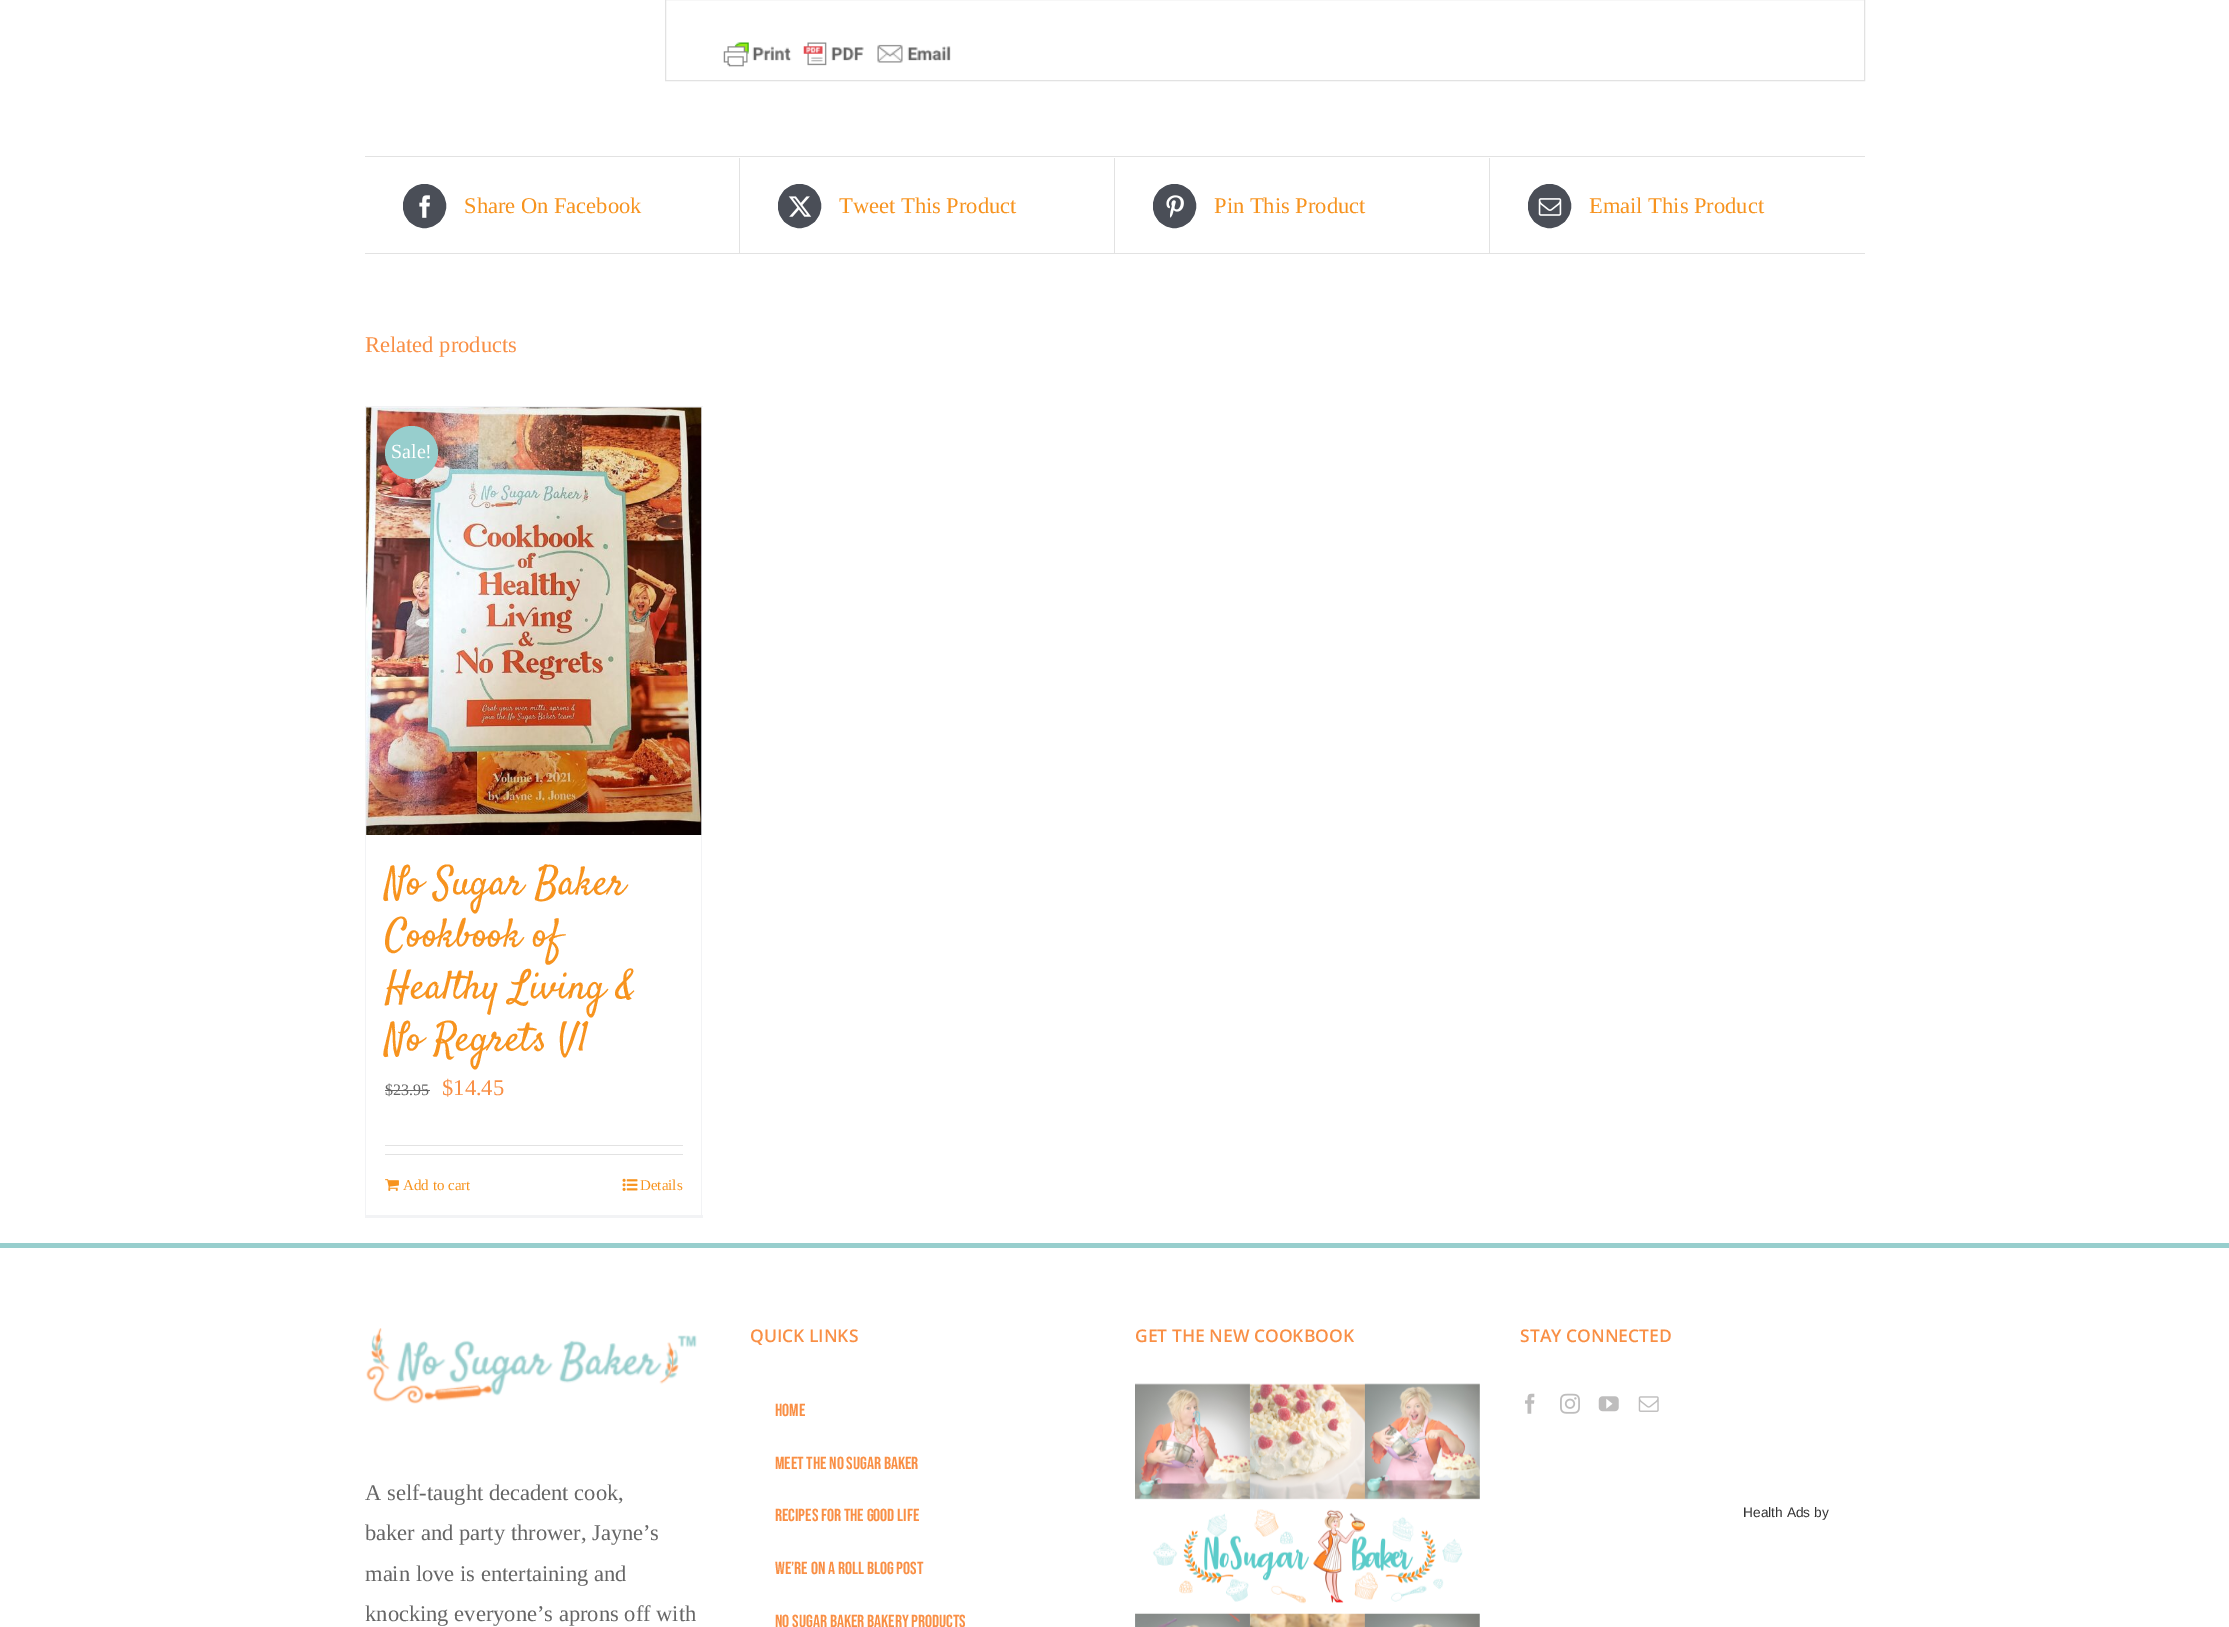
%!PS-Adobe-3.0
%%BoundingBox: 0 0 2229 1627
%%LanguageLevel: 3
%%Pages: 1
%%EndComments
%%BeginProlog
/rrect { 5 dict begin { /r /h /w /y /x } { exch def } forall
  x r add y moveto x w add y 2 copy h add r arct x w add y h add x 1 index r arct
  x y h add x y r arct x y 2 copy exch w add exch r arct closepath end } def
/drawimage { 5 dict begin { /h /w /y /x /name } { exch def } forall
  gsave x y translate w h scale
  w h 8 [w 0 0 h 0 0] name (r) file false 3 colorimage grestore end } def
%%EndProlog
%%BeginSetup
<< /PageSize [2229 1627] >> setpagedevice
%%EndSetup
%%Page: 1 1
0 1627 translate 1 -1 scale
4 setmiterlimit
1 setgray
0 0 2229 1627 rectfill
0.886 setgray
665.5 -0.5 1199 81 rectstroke
(images/1.raw) 723 42 228 25 drawimage
365 156 1500 1 rectfill
365 253 1500 1 rectfill
739 158 1 95 rectfill
0.29 0.306 0.341 setrgbcolor
403.5 184.5 42 43 21 rrect gsave fill grestore
stroke
(images/2.raw) 419 195 11 23 drawimage
0.886 setgray
1114 158 1 95 rectfill
0.29 0.306 0.341 setrgbcolor
778.5 184.5 42 43 21 rrect gsave fill grestore
stroke
(images/3.raw) 788 196 24 21 drawimage
0.886 setgray
1489 158 1 95 rectfill
0.29 0.306 0.341 setrgbcolor
1153.5 184.5 42 43 21 rrect gsave fill grestore
stroke
(images/4.raw) 1166 195 18 23 drawimage
1528.5 184.5 42 43 21 rrect gsave fill grestore
stroke
(images/5.raw) 1538 198 24 18 drawimage
0.949 0.953 0.961 setrgbcolor
365 406 338 1 rectfill
701 406 1 812 rectfill
365 1215 338 3 rectfill
365 406 1 812 rectfill
(images/6.raw) 366 407 336 428 drawimage
0.592 0.808 0.804 setrgbcolor
newpath 411.5 452.5 26.5 0 360 arc closepath fill
0.4 setgray
385 1090 9 1 rectfill
394 1090 36 1 rectfill
0.886 setgray
385 1145 298 1 rectfill
385 1154 298 1 rectfill
(images/7.raw) 385 1179 14 12 drawimage
(images/8.raw) 622 1178 16 13 drawimage
0.592 0.808 0.804 setrgbcolor
0 1243 2229 5 rectfill
(images/9.raw) 1135 1383 345 244 drawimage
(images/10.raw) 1525 1393 10 21 drawimage
(images/11.raw) 1560 1393 20 21 drawimage
(images/12.raw) 1598 1396 21 16 drawimage
(images/13.raw) 1638 1396 21 16 drawimage
(images/14.raw) 366 1328 331 76 drawimage
/LiberationSerif-Regular [22.5 0 0 -22.5 0 0] selectfont
0.969 0.576 0.118 setrgbcolor
464 213 moveto (Share On Facebook) show
839 213 moveto (Tweet This Product) show
1214 213 moveto (Pin This Product) show
1589 213 moveto (Email This Product) show
0.976 0.561 0.271 setrgbcolor
365 352 moveto (Related products) show
/LiberationSerif-Regular [20 0 0 -20 0 0] selectfont
1 setgray
391 458 moveto (Sale!) show
/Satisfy-Regular [40 0 0 -40 0 0] selectfont
0.969 0.576 0.118 setrgbcolor
385 894 moveto (No Sugar Baker) show
385 946 moveto (Cookbook of) show
385 998 moveto (Healthy Living &) show
385 1050 moveto (No Regrets V1) show
/LiberationSerif-Regular [16 0 0 -16 0 0] selectfont
0.4 setgray
385 1095 moveto ($) show
393 1095 moveto (23.95) show
/LiberationSerif-Regular [22.5 0 0 -22.5 0 0] selectfont
0.976 0.561 0.271 setrgbcolor
442 1095 moveto ($14.45) show
/LiberationSerif-Regular [15 0 0 -15 0 0] selectfont
0.969 0.576 0.118 setrgbcolor
403 1190 moveto (Add to cart) show
640 1190 moveto (Details) show
/OpenSans-SemiBold [17.5 0 0 -17.5 0 0] selectfont
0.976 0.561 0.271 setrgbcolor
750 1342 moveto (QUICK LINKS) show
/BebasNeue-Regular [17.5 0 0 -17.5 0 0] selectfont
775 1416 moveto (Home) show
775 1469 moveto (Meet The No Sugar Baker) show
775 1521 moveto (Recipes for the Good Life) show
775 1574 moveto (We’re on a Roll Blog Post) show
775 1627 moveto (No Sugar Baker Bakery Products) show
/OpenSans-SemiBold [17.5 0 0 -17.5 0 0] selectfont
1135 1342 moveto (GET THE NEW COOKBOOK) show
1520 1342 moveto (STAY CONNECTED) show
/LiberationSans-Regular [13.75 0 0 -13.75 0 0] selectfont
0.2 setgray
1743 1517 moveto (Health Ads by) show
/LiberationSerif-Regular [22.5 0 0 -22.5 0 0] selectfont
0.4 setgray
365 1500 moveto (A self-taught decadent cook,) show
365 1540 moveto (baker and party thrower, Jayne’s) show
365 1581 moveto (main love is entertaining and) show
365 1621 moveto (knocking everyone’s aprons off with) show
showpage
%%EOF
